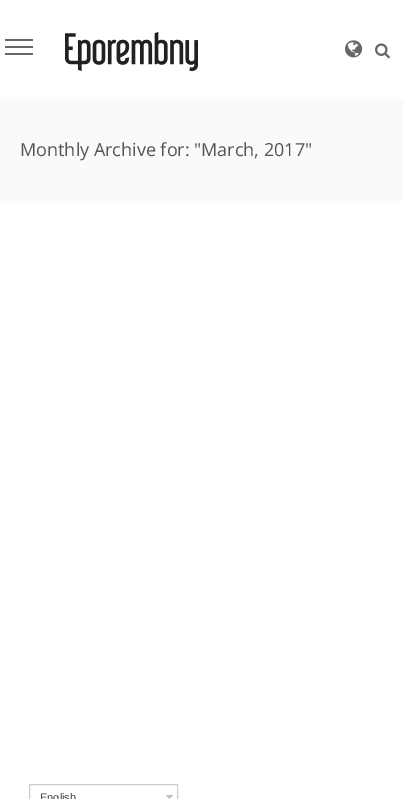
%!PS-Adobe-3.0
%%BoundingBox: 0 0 403 799
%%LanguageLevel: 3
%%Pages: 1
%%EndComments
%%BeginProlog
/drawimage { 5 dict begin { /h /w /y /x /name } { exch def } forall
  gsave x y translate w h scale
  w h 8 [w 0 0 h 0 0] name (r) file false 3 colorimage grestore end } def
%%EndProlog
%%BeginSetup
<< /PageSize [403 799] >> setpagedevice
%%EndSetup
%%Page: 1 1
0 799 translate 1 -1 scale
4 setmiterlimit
1 setgray
0 0 403 799 rectfill
0.4 setgray
5 39 28 2 rectfill
5 46 28 2 rectfill
5 53 28 2 rectfill
(images/1.raw) 65 32 133 39 drawimage
(images/2.raw) 345 40 18 18 drawimage
(images/3.raw) 375 43 15 16 drawimage
0.98 setgray
0 99 403 102 rectfill
(images/4.raw) 166 795 7 4 drawimage
0.804 setgray
29.5 784.5 148 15 rectstroke
/OpenSans-Regular [18 0 0 -18 0 0] selectfont
0.329 setgray
20 156 moveto (Monthly Archive for: "March, 2017") show
/LiberationSans-Regular [11 0 0 -11 0 0] selectfont
0.267 setgray
40 801 moveto (English) show
showpage
%%EOF
